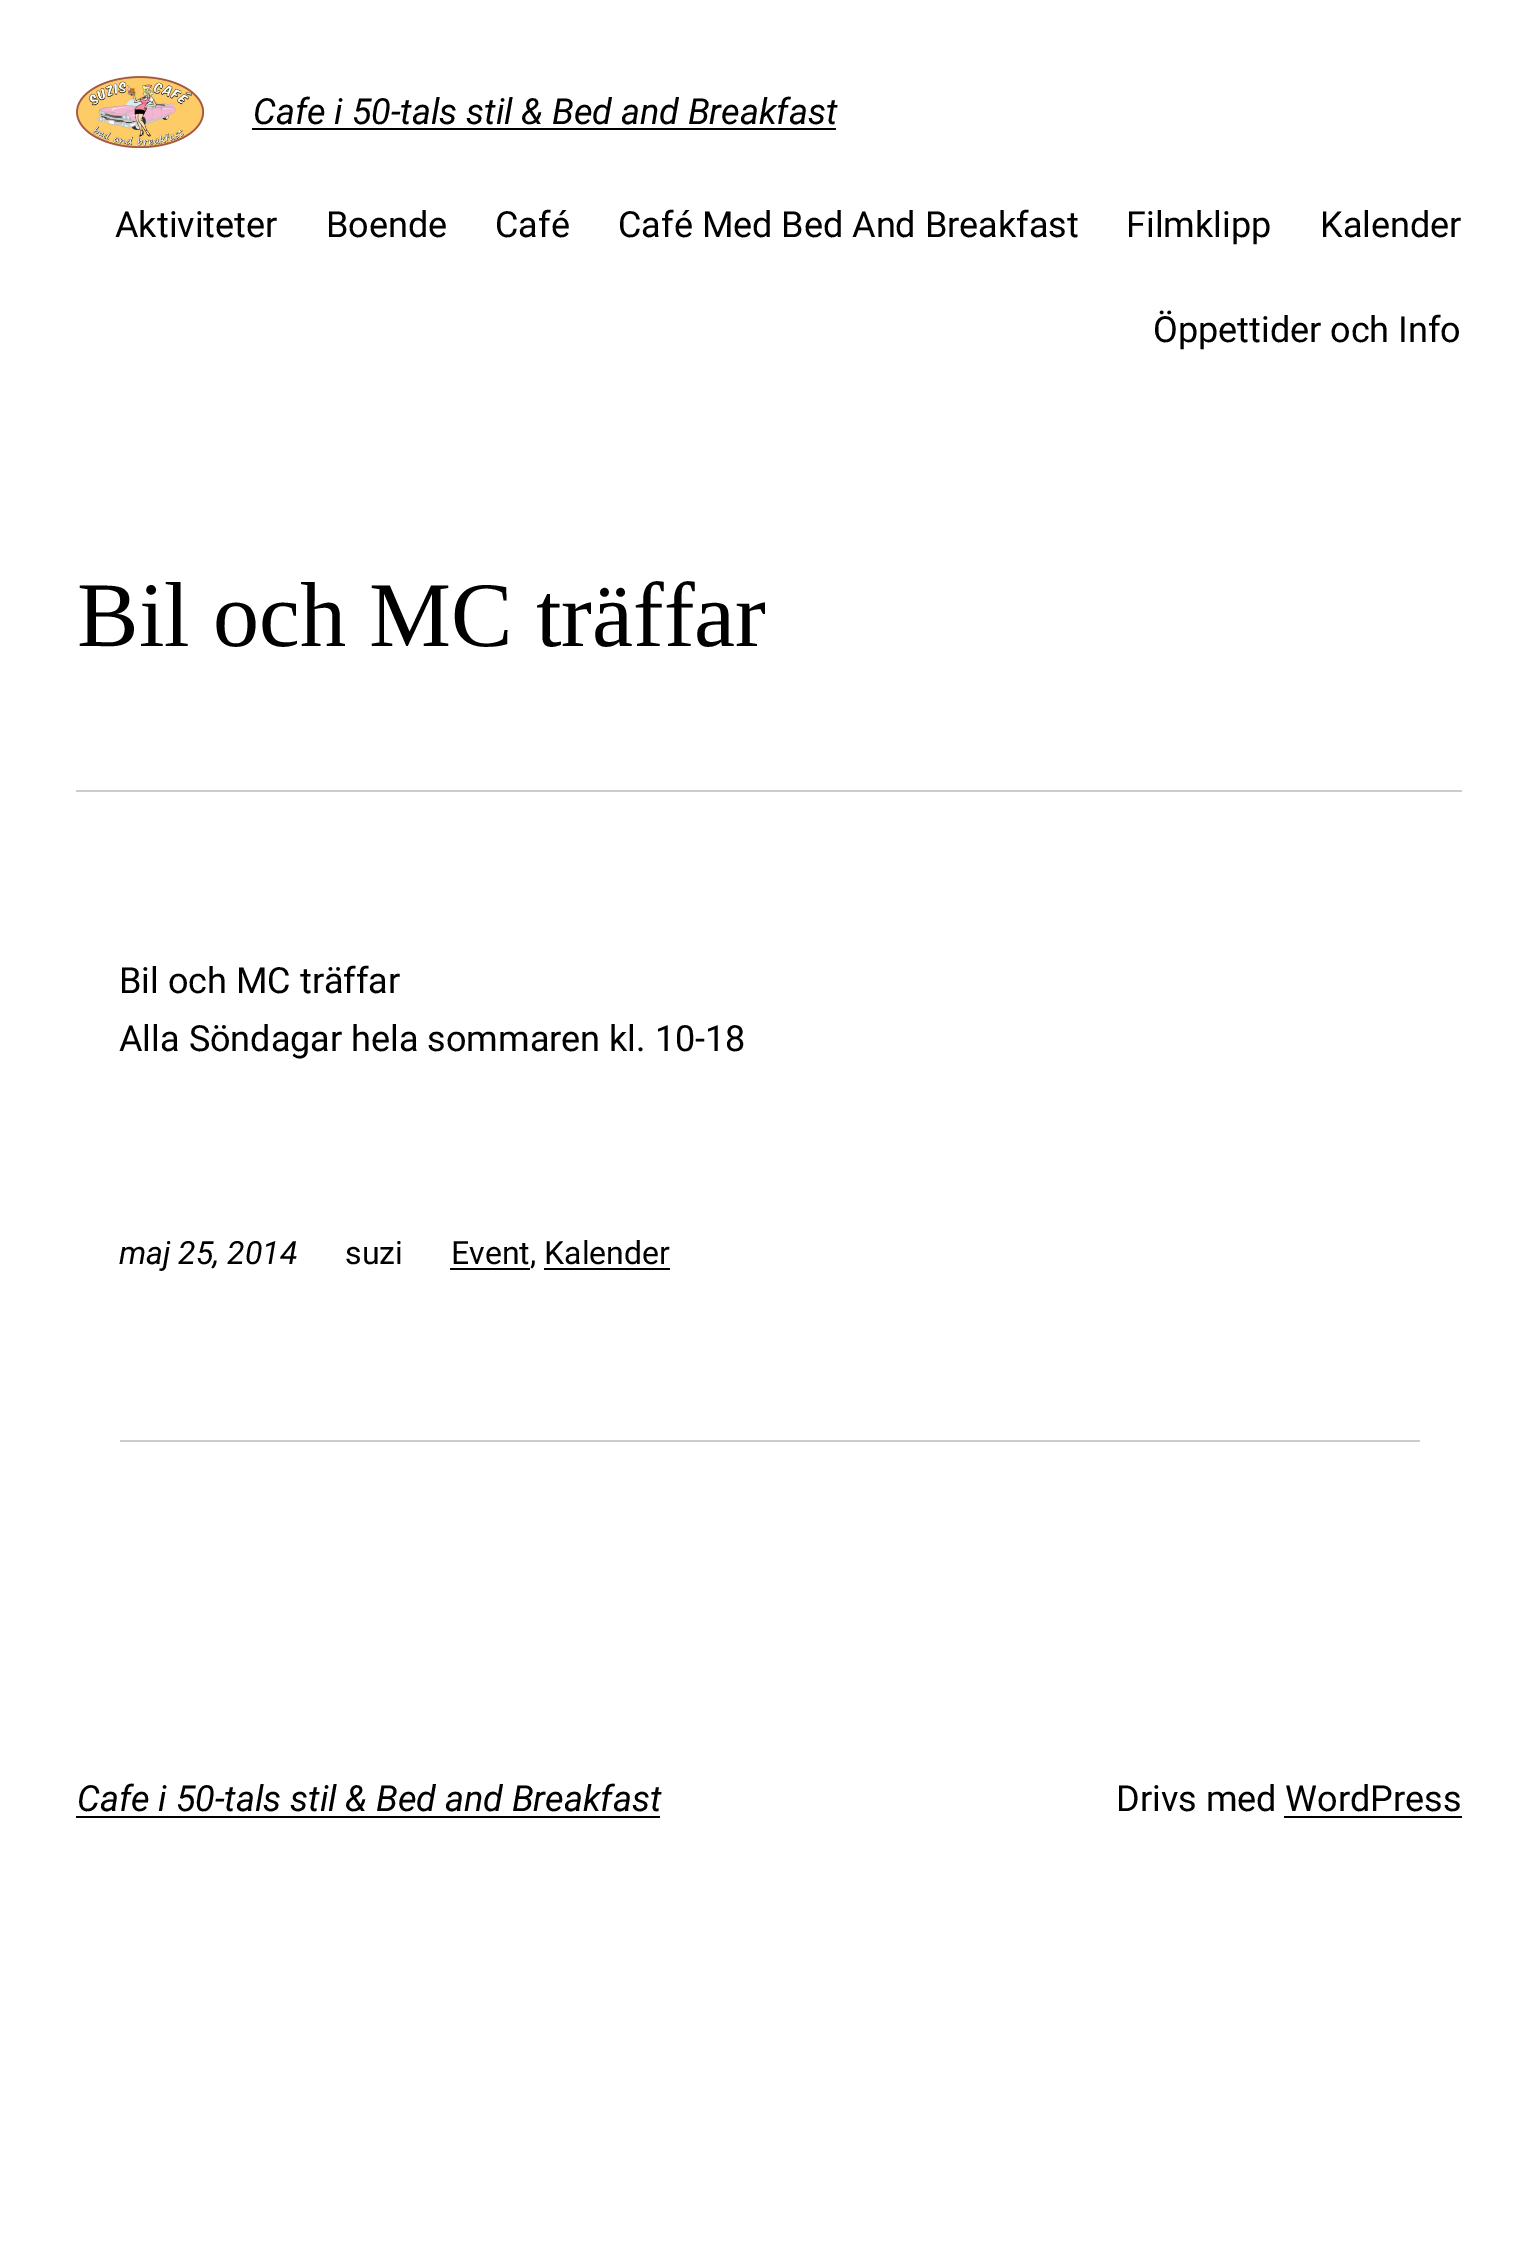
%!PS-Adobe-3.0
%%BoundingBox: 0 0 1537 2255
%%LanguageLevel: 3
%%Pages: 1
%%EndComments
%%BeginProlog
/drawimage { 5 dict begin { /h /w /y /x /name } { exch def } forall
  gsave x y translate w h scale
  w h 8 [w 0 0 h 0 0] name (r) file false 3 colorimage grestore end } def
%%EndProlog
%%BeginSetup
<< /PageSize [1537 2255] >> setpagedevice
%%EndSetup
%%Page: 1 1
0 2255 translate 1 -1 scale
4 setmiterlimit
1 setgray
0 0 1537 2255 rectfill
(images/1.raw) 76 76 128 72 drawimage
0 setgray
252 128 584 2 rectfill
0.8 setgray
76 790 1386 2 rectfill
0 setgray
450 1268 80 2 rectfill
544 1268 126 2 rectfill
0.8 setgray
120 1440 1300 2 rectfill
0 setgray
76 1816 584 2 rectfill
1284 1816 178 2 rectfill
/Roboto-Italic [36 0 0 -36 0 0] selectfont
253 124 moveto (Cafe i 50-tals stil & Bed and Breakfast) show
/Roboto-Regular [36 0 0 -36 0 0] selectfont
115 237 moveto (Aktiviteter) show
326 237 moveto (Boende) show
495 237 moveto (Café) show
618 237 moveto (Café Med Bed And Breakfast) show
1126 237 moveto (Filmklipp) show
1320 237 moveto (Kalender) show
1153 342 moveto (Öppettider och Info) show
/LiberationSerif-Regular [92.25 0 0 -92.25 0 0] selectfont
77 646 moveto (Bil och MC träffar) show
/Roboto-Regular [36 0 0 -36 0 0] selectfont
119 993 moveto (Bil och MC träffar) show
119 1051 moveto (Alla Söndagar hela sommaren kl. 10-18) show
/Roboto-Italic [32 0 0 -32 0 0] selectfont
119 1264 moveto (maj 25, 2014) show
/Roboto-Regular [32 0 0 -32 0 0] selectfont
345 1264 moveto (suzi) show
451 1264 moveto (Event, Kalender) show
/Roboto-Italic [36 0 0 -36 0 0] selectfont
77 1811 moveto (Cafe i 50-tals stil & Bed and Breakfast) show
/Roboto-Regular [36 0 0 -36 0 0] selectfont
1116 1811 moveto (Drivs med WordPress) show
showpage
%%EOF
